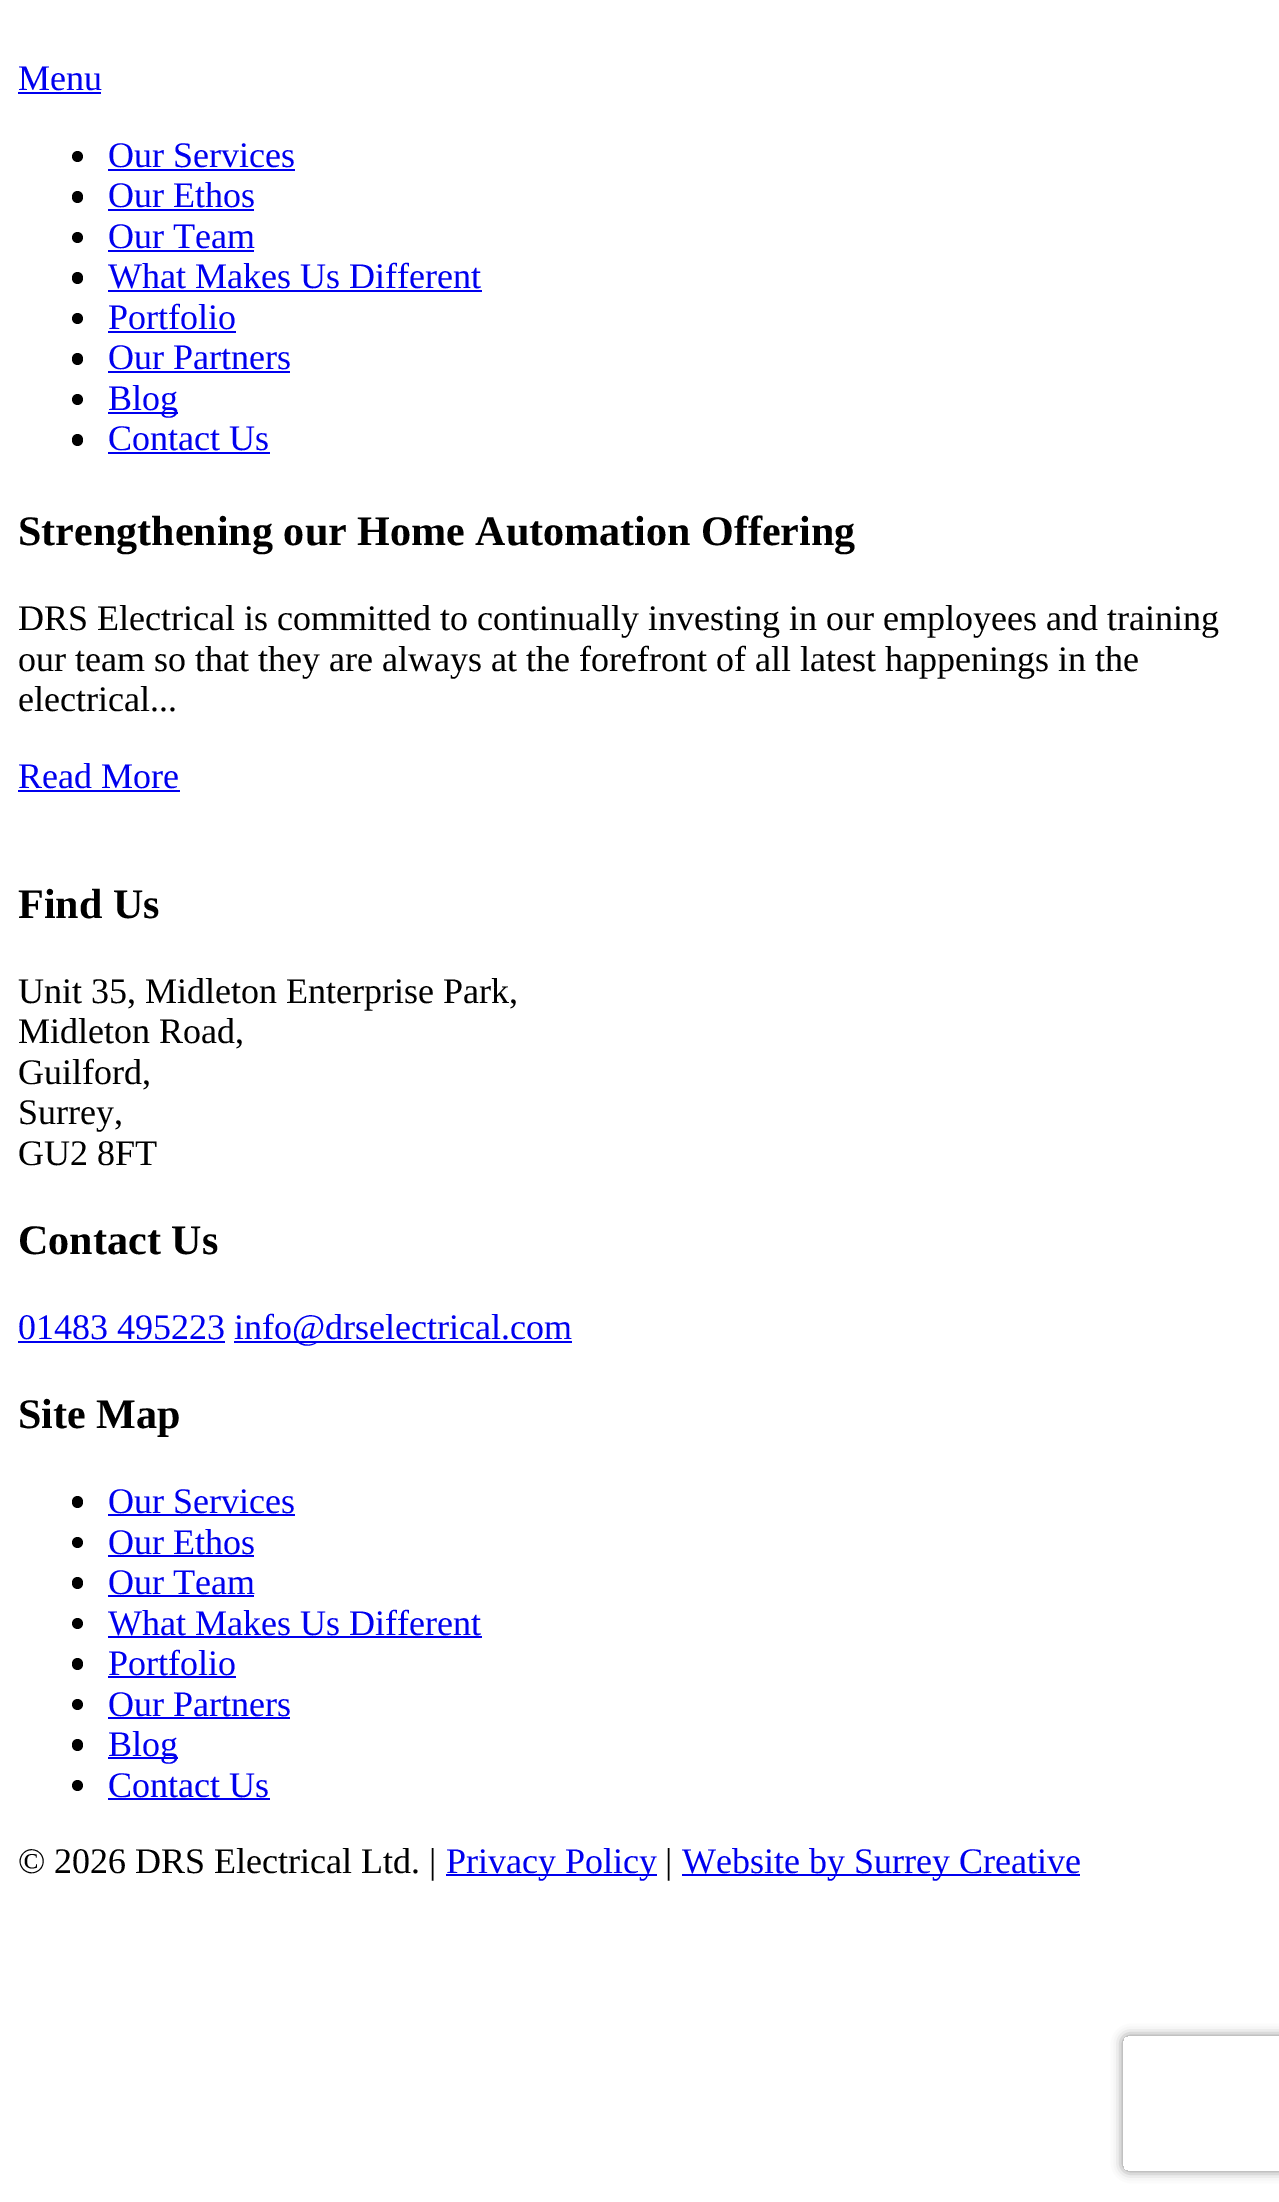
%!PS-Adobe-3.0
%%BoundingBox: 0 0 1279 2202
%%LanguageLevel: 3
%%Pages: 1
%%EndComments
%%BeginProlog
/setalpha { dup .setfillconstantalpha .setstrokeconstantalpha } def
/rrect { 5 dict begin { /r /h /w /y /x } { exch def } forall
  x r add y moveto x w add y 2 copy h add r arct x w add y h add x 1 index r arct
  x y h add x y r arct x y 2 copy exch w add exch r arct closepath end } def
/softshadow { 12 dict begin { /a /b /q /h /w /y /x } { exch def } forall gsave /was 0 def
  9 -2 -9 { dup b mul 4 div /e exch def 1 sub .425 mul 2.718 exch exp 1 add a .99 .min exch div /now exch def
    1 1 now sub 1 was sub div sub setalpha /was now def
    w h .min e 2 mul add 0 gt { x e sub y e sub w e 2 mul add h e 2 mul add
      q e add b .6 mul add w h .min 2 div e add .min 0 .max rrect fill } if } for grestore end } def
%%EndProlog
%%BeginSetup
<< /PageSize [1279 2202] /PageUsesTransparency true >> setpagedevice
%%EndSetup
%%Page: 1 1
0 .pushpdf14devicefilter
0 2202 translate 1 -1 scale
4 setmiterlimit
1 setgray
0 0 1279 2202 rectfill
0 0 0.933 setrgbcolor
18 92 83 2 rectfill
0 setgray
newpath 77.5 156.5 5.5 0 360 arc closepath fill
0 0 0.933 setrgbcolor
108 169 187 2 rectfill
0 setgray
72 191 11 12 5.5 rrect fill
0 0 0.933 setrgbcolor
108 209 146 2 rectfill
0 setgray
newpath 77.5 237.5 5.5 0 360 arc closepath fill
0 0 0.933 setrgbcolor
108 250 146 2 rectfill
0 setgray
72 272 11 12 5.5 rrect fill
0 0 0.933 setrgbcolor
108 290 374 2 rectfill
0 setgray
newpath 77.5 318.5 5.5 0 360 arc closepath fill
0 0 0.933 setrgbcolor
108 331 128 2 rectfill
0 setgray
72 353 11 12 5.5 rrect fill
0 0 0.933 setrgbcolor
108 371 182 2 rectfill
0 setgray
newpath 77.5 399.5 5.5 0 360 arc closepath fill
0 0 0.933 setrgbcolor
108 412 70 2 rectfill
0 setgray
72 434 11 12 5.5 rrect fill
0 0 0.933 setrgbcolor
108 452 162 2 rectfill
18 790 162 2 rectfill
18 1341 207 2 rectfill
234 1341 338 2 rectfill
0 setgray
72 1496 11 12 5.5 rrect fill
0 0 0.933 setrgbcolor
108 1514 187 2 rectfill
0 setgray
newpath 77.5 1542.5 5.5 0 360 arc closepath fill
0 0 0.933 setrgbcolor
108 1555 146 2 rectfill
0 setgray
72 1577 11 12 5.5 rrect fill
0 0 0.933 setrgbcolor
108 1595 146 2 rectfill
0 setgray
newpath 77.5 1623.5 5.5 0 360 arc closepath fill
0 0 0.933 setrgbcolor
108 1636 374 2 rectfill
0 setgray
72 1658 11 12 5.5 rrect fill
0 0 0.933 setrgbcolor
108 1676 128 2 rectfill
0 setgray
newpath 77.5 1704.5 5.5 0 360 arc closepath fill
0 0 0.933 setrgbcolor
108 1717 182 2 rectfill
0 setgray
72 1739 11 12 5.5 rrect fill
0 0 0.933 setrgbcolor
108 1757 70 2 rectfill
0 setgray
newpath 77.5 1785.5 5.5 0 360 arc closepath fill
0 0 0.933 setrgbcolor
108 1798 162 2 rectfill
446 1874 211 2 rectfill
682 1874 398 2 rectfill
gsave
newpath 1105 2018 moveto 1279 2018 lineto 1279 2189 lineto 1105 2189 lineto closepath 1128 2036 moveto 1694 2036 lineto 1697 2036 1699 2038 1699 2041 curveto 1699 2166 lineto 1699 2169 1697 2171 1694 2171 curveto 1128 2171 lineto 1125 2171 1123 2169 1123 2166 curveto 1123 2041 lineto 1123 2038 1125 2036 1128 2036 curveto closepath eoclip newpath
0.502 setgray
1123 2036 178 135 5 5.5 1 softshadow
grestore
/LiberationSerif-Regular [36 0 0 -36 0 0] selectfont
18 90 moveto (Menu) show
108 167 moveto (Our Services) show
108 207 moveto (Our Ethos) show
108 248 moveto (Our Team) show
108 288 moveto (What Makes Us Different) show
108 329 moveto (Portfolio) show
108 369 moveto (Our Partners) show
108 410 moveto (Blog) show
108 450 moveto (Contact Us) show
/LiberationSerif-Bold [42.1 0 0 -42.1 0 0] selectfont
0 setgray
18 545 moveto (Strengthening our Home Automation Offering) show
/LiberationSerif-Regular [36 0 0 -36 0 0] selectfont
18 630 moveto (DRS Electrical is committed to continually investing in our employees and training) show
18 671 moveto (our team so that they are always at the forefront of all latest happenings in the) show
18 711 moveto (electrical...) show
0 0 0.933 setrgbcolor
18 788 moveto (Read More) show
/LiberationSerif-Bold [42.1 0 0 -42.1 0 0] selectfont
0 setgray
18 918 moveto (Find Us) show
/LiberationSerif-Regular [36 0 0 -36 0 0] selectfont
18 1003 moveto (Unit 35, Midleton Enterprise Park,) show
18 1043 moveto (Midleton Road,) show
18 1084 moveto (Guilford,) show
18 1124 moveto (Surrey,) show
18 1165 moveto (GU2 8FT) show
/LiberationSerif-Bold [42.1 0 0 -42.1 0 0] selectfont
18 1254 moveto (Contact Us) show
/LiberationSerif-Regular [36 0 0 -36 0 0] selectfont
0 0 0.933 setrgbcolor
18 1339 moveto (01483 495223) show
234 1339 moveto (info@drselectrical.com) show
/LiberationSerif-Bold [42.1 0 0 -42.1 0 0] selectfont
0 setgray
18 1428 moveto (Site Map) show
/LiberationSerif-Regular [36 0 0 -36 0 0] selectfont
0 0 0.933 setrgbcolor
108 1513 moveto (Our Services) show
108 1554 moveto (Our Ethos) show
108 1594 moveto (Our Team) show
108 1635 moveto (What Makes Us Different) show
108 1675 moveto (Portfolio) show
108 1716 moveto (Our Partners) show
108 1756 moveto (Blog) show
108 1797 moveto (Contact Us) show
0 setgray
18 1873 moveto (© 2026 DRS Electrical Ltd. |) show
0 0 0.933 setrgbcolor
446 1873 moveto (Privacy Policy) show
0 setgray
665 1873 moveto (|) show
0 0 0.933 setrgbcolor
682 1873 moveto (Website by Surrey Creative) show
.poppdf14devicefilter showpage
%%EOF
